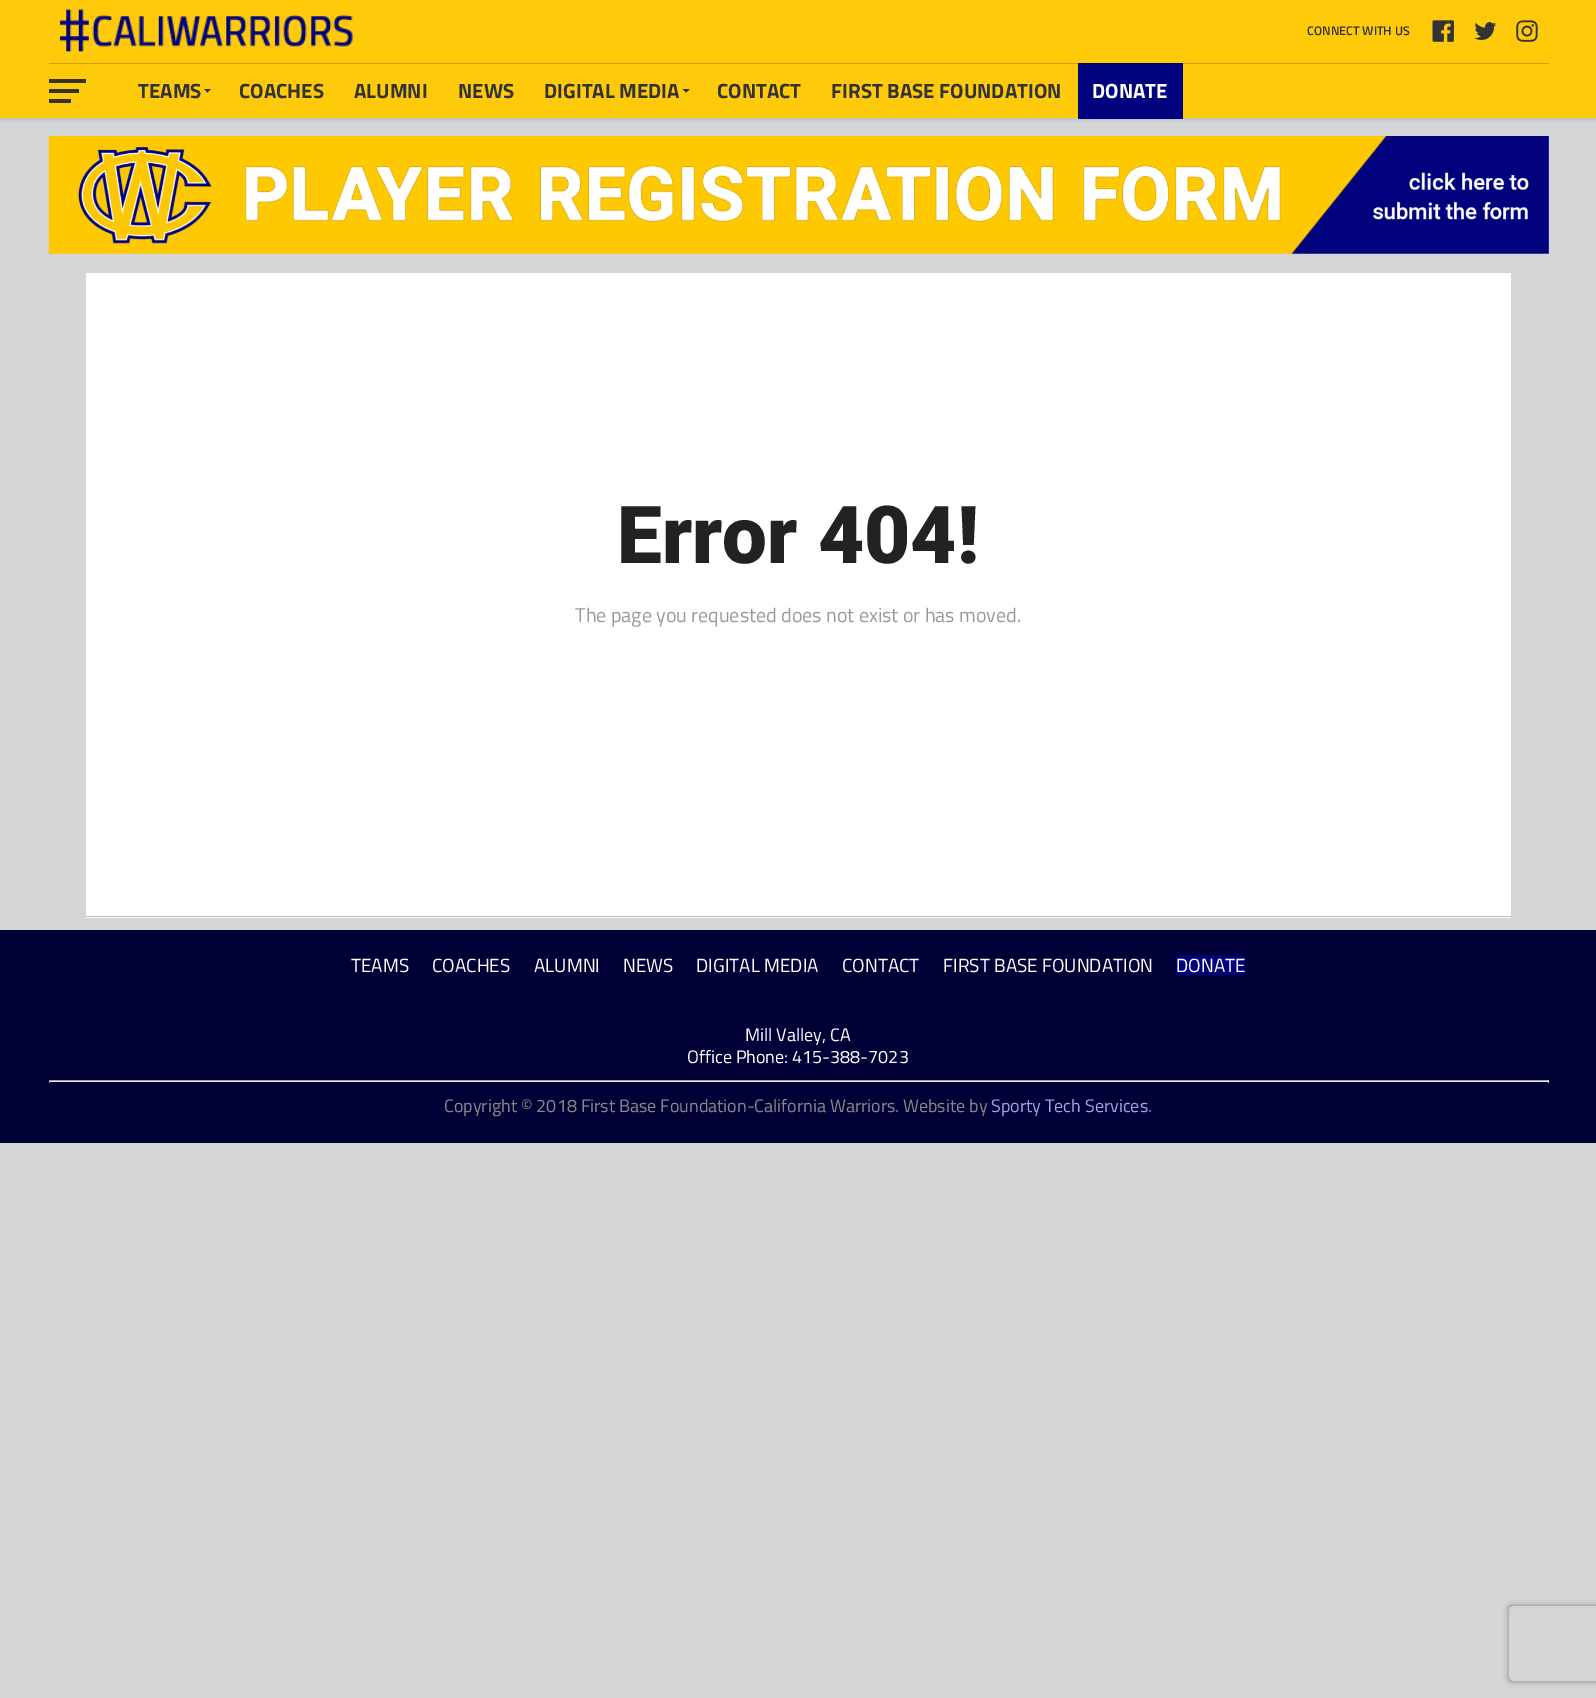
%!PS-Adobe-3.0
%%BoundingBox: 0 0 1596 1698
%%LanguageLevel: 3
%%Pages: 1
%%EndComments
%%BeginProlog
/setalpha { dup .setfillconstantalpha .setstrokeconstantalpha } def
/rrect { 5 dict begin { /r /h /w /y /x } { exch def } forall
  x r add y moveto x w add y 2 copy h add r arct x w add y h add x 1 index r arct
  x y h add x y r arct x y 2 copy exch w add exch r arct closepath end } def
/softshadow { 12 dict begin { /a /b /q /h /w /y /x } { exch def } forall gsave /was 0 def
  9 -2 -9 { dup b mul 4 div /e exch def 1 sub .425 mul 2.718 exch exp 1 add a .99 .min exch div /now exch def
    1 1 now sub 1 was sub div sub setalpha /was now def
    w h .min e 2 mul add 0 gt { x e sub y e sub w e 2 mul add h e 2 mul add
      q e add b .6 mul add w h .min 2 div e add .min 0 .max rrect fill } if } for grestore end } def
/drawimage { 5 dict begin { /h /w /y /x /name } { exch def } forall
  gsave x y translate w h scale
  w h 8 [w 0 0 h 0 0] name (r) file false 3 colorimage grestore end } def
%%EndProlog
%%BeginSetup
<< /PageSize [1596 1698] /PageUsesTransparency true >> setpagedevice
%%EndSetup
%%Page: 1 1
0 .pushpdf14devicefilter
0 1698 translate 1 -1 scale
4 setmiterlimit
0.831 0.835 0.843 setrgbcolor
0 0 1596 1698 rectfill
0 setgray
0 3 1596 117 0 1 0.1 softshadow
1 0.792 0.039 setrgbcolor
0 0 1596 118 rectfill
0.8 0.635 0.031 setrgbcolor
49 63 1500 1 rectfill
(images/1.raw) 59 8 294 44 drawimage
(images/2.raw) 1432 20 22 22 drawimage
(images/3.raw) 1474 22 23 18 drawimage
(images/4.raw) 1516 20 22 22 drawimage
0.2 setgray
49 79 37 4 rectfill
49 89 30 4 rectfill
49 99 22 4 rectfill
newpath 204 89 moveto 211 89 lineto 207.5 92.5 lineto closepath fill
newpath 682.5 89 moveto 690 89 lineto 686 92.5 lineto closepath fill
0 0.004 0.486 setrgbcolor
1078 64 105 55 rectfill
0 0.004 0.388 setrgbcolor
1078 63 105 1 rectfill
(images/5.raw) 48 136 1501 118 drawimage
1 setgray
86 273 1425 645 rectfill
0.733 setgray
86 916 1425 1 rectfill
0 0 0.216 setrgbcolor
0 930 1596 213 rectfill
0 0.004 0.486 setrgbcolor
1176 955 69 20 rectfill
0.624 setgray
49 1080 1500 1 rectfill
0.933 setgray
1548 1080 1 3 rectfill
49 1081 1500 1 rectfill
0.624 setgray
49 1080 1 3 rectfill
gsave
newpath 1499 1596 moveto 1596 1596 lineto 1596 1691 lineto 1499 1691 lineto closepath 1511.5 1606 moveto 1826.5 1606 lineto 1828 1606 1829 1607 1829 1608.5 curveto 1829 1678.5 lineto 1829 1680 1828 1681 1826.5 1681 curveto 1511.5 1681 lineto 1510 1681 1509 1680 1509 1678.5 curveto 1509 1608.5 lineto 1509 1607 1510 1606 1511.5 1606 curveto closepath eoclip newpath
0.502 setgray
1509 1606 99 75 2.5 3 1 softshadow
grestore
/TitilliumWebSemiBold-SemiBold [12.5 0 0 -12.5 0 0] selectfont
0.2 setgray
1307 35 moveto (CONNECT WITH US) show
/TitilliumWeb-Bold [20.6 0 0 -20.6 0 0] selectfont
138 98 moveto (TEAMS) show
239 98 moveto (COACHES) show
354 98 moveto (ALUMNI) show
458 98 moveto (NEWS) show
544 98 moveto (DIGITAL MEDIA) show
717 98 moveto (CONTACT) show
831 98 moveto (FIRST BASE FOUNDATION) show
1 setgray
1092 98 moveto (DONATE) show
/Roboto-Black [80 0 0 -80 0 0] selectfont
0.133 setgray
617 563 moveto (Error 404!) show
/TitilliumWeb-Regular [20 0 0 -20 0 0] selectfont
0.6 setgray
575 622 moveto (The page you requested does not exist or has moved.) show
/TitilliumWeb-Regular [19 0 0 -19 0 0] selectfont
1 setgray
351 972 moveto (TEAMS) show
432 972 moveto (COACHES) show
534 972 moveto (ALUMNI) show
623 972 moveto (NEWS) show
696 972 moveto (DIGITAL MEDIA) show
842 972 moveto (CONTACT) show
943 972 moveto (FIRST BASE FOUNDATION) show
1176 972 moveto (DONATE) show
/TitilliumWeb-Regular [18 0 0 -18 0 0] selectfont
745 1041 moveto (Mill Valley, CA) show
687 1063 moveto (Office Phone: 415-388-7023) show
0.533 setgray
444 1112 moveto (Copyright © 2018 First Base Foundation-California Warriors. Website by) show
0.635 0.635 0.898 setrgbcolor
991 1112 moveto (Sporty Tech Services) show
0.533 setgray
1148 1112 moveto (.) show
.poppdf14devicefilter showpage
%%EOF
